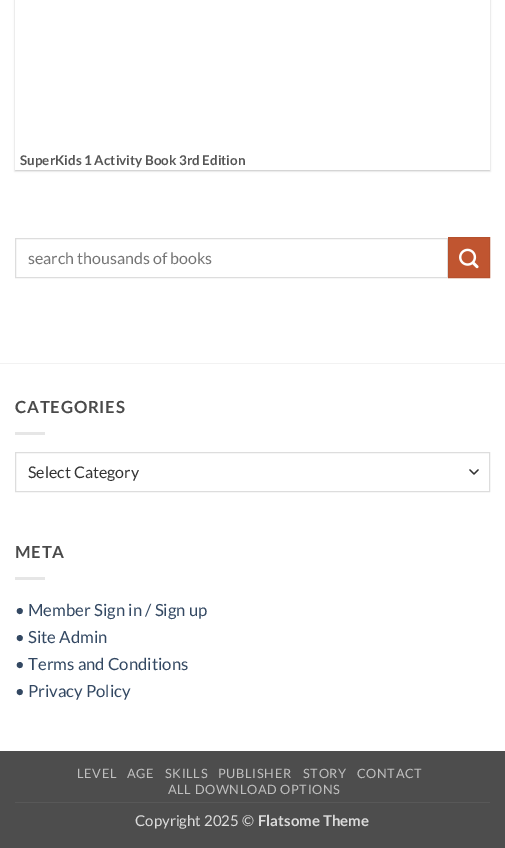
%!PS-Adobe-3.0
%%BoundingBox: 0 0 505 848
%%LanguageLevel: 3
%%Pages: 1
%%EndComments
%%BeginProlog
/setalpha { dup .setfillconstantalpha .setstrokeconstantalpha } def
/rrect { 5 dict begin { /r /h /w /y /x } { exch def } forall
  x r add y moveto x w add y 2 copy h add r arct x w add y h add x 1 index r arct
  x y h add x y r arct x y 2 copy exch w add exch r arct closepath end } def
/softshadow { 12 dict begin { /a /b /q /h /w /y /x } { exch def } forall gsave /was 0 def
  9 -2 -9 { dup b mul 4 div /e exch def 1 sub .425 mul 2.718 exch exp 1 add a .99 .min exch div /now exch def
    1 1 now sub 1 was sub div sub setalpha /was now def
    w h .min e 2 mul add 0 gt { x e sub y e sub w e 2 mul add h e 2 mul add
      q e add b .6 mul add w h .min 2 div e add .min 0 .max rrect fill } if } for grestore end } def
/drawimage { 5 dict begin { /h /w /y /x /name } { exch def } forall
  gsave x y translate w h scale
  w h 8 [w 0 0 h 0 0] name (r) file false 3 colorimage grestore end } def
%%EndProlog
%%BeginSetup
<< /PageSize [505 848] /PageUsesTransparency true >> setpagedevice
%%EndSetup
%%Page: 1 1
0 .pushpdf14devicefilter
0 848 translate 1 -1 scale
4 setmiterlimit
1 setgray
0 0 505 848 rectfill
gsave
newpath 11 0 moveto 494 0 lineto 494 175 lineto 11 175 lineto closepath 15 -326 moveto 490 -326 lineto 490 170 lineto 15 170 lineto closepath eoclip newpath
0 setgray
15 -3 475 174 0 1 0.24 softshadow
grestore
0.867 setgray
15.5 238.5 432 39 rectstroke
0.753 0.333 0.188 setrgbcolor
newpath 448.5 237.5 moveto 489.5 237.5 lineto 489.5 277.5 lineto 448.5 277.5 lineto closepath gsave fill grestore
0.714 0.318 0.18 setrgbcolor
stroke
(images/1.raw) 459 248 20 21 drawimage
0.949 setgray
0 363 505 1 rectfill
0.902 setgray
15 432 30 3 rectfill
0.2 setgray
1.3 setlinewidth
1 setlinecap
1 setlinejoin
newpath 470 470 moveto 474 474 lineto 478 470 lineto stroke
0.867 setgray
1 setlinewidth
0 setlinecap
0 setlinejoin
15.5 452.5 474 39 rectstroke
0.902 setgray
15 577 30 3 rectfill
0.302 setgray
0 751 505 97 rectfill
0.345 setgray
15 802 475 1 rectfill
/Lato-Bold [13.4 0 0 -13.4 0 0] selectfont
0.333 setgray
20 165 moveto (SuperKids 1 Activity Book 3rd Edition) show
/Lato-Regular [16 0 0 -16 0 0] selectfont
0.459 setgray
28 264 moveto (search thousands of books) show
/Lato-Bold [16.75 0 0 -16.75 0 0] selectfont
0.29 setgray
15 413 moveto 0.75 0 (CATEGORIES) ashow
/Lato-Regular [16 0 0 -16 0 0] selectfont
0.2 setgray
28 478 moveto (Select Category) show
/Lato-Bold [16.75 0 0 -16.75 0 0] selectfont
0.29 setgray
15 558 moveto 0.75 0 (META) ashow
/Lato-Regular [16.75 0 0 -16.75 0 0] selectfont
0.2 0.282 0.384 setrgbcolor
15 616 moveto (• Member Sign in / Sign up) show
15 643 moveto (• Site Admin) show
15 670 moveto (• Terms and Conditions) show
15 697 moveto (• Privacy Policy) show
/Lato-Regular [12.8 0 0 -12.8 0 0] selectfont
0.749 setgray
77 778 moveto 0.6 0 (LEVEL) ashow
127 778 moveto 0.6 0 (AGE) ashow
165 778 moveto 0.6 0 (SKILLS) ashow
218 778 moveto 0.6 0 (PUBLISHER) ashow
303 778 moveto 0.6 0 (STORY) ashow
357 778 moveto 0.6 0 (CONTACT) ashow
168 794 moveto 0.6 0 (ALL DOWNLOAD OPTIONS) ashow
/Lato-Regular [15 0 0 -15 0 0] selectfont
0.859 setgray
135 826 moveto (Copyright 2025 ©) show
/Lato-Bold [15 0 0 -15 0 0] selectfont
258 826 moveto (Flatsome Theme) show
.poppdf14devicefilter showpage
%%EOF
